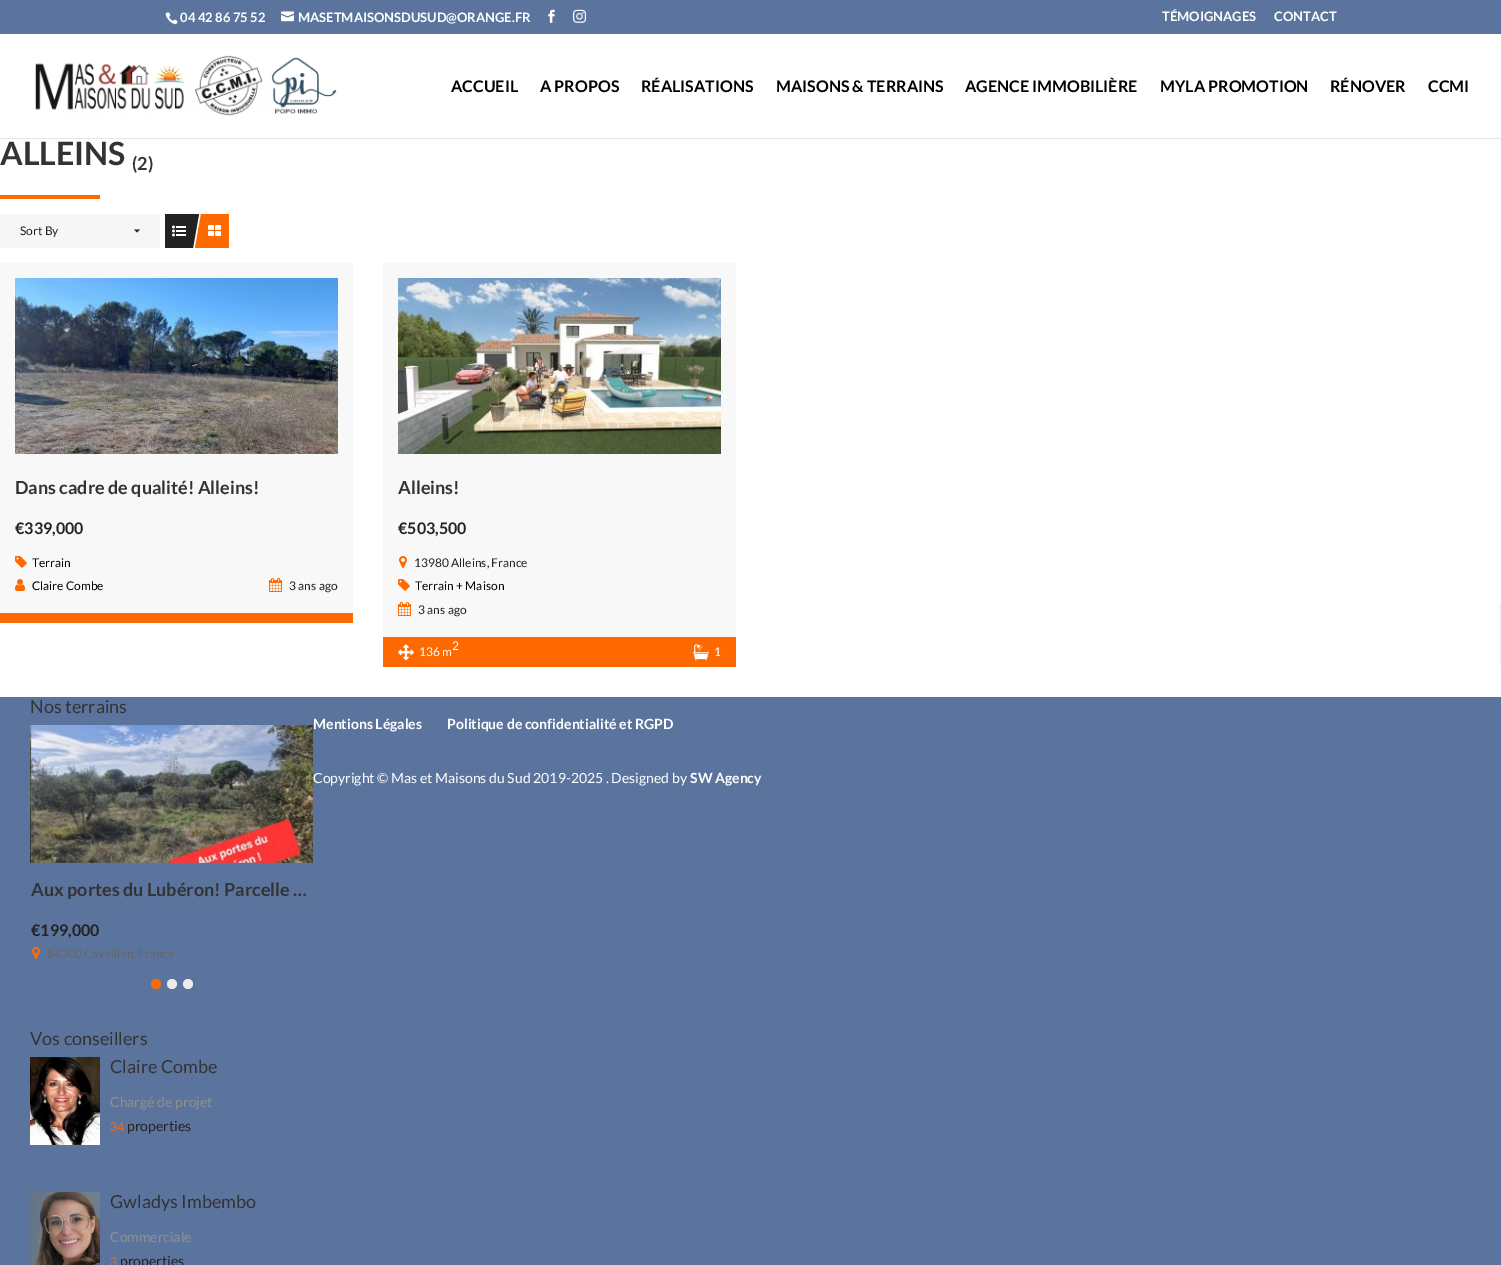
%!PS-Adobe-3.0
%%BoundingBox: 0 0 1501 1265
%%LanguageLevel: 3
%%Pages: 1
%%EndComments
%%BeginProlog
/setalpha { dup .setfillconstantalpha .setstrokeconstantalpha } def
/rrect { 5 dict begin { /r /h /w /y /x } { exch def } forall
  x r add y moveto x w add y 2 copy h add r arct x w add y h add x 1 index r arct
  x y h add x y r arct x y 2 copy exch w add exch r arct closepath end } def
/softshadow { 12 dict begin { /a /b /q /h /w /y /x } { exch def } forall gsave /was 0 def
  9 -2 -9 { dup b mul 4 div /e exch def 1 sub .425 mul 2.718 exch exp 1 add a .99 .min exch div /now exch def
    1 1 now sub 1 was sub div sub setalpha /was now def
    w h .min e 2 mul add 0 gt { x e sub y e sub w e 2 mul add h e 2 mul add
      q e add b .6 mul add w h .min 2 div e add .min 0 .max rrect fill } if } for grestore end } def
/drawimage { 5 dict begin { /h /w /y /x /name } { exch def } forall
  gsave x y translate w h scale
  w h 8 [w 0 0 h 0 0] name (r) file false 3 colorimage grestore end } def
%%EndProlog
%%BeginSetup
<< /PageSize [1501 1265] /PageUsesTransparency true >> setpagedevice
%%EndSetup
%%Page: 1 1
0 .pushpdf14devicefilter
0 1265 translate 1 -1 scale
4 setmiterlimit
1 setgray
0 0 1501 1265 rectfill
0.357 0.455 0.62 setrgbcolor
0 0 1501 34 rectfill
(images/1.raw) 165 12 13 13 drawimage
(images/2.raw) 281 11 13 11 drawimage
(images/3.raw) 548 9 7 14 drawimage
(images/4.raw) 573 9 13 14 drawimage
0.902 setgray
0 138 1501 1 rectfill
(images/5.raw) 35 55 302 61 drawimage
0.996 0.416 0 setrgbcolor
0 195 100 4 rectfill
0.965 setgray
0 214 160 34 rectfill
0.149 setgray
newpath 134 229.5 moveto 140 229.5 lineto 137 232.5 lineto closepath fill
0.133 setgray
165 214 28 34 rectfill
(images/6.raw) 172 225 14 12 drawimage
newpath 193 214 moveto 199 214 lineto 193 248 lineto closepath fill
0.996 0.416 0 setrgbcolor
201 214 28 34 rectfill
newpath 201 248 moveto 195 248 lineto 201 214 lineto closepath fill
(images/7.raw) 208 225 13 11 drawimage
0.973 setgray
0 263 353 350 rectfill
(images/8.raw) 15 278 323 176 drawimage
(images/9.raw) 15 556 12 12 drawimage
(images/10.raw) 15 579 10 12 drawimage
(images/11.raw) 269 578 13 14 drawimage
0.996 0.416 0 setrgbcolor
0 613 353 10 rectfill
0.973 setgray
383 263 353 374 rectfill
(images/12.raw) 398 278 323 176 drawimage
(images/13.raw) 399 556 8 12 drawimage
(images/9.raw) 398 579 12 12 drawimage
(images/11.raw) 398 602 13 14 drawimage
0.996 0.416 0 setrgbcolor
383 637 353 30 rectfill
(images/14.raw) 398 644 16 17 drawimage
(images/15.raw) 693 644 16 17 drawimage
0.357 0.455 0.62 setrgbcolor
0 697 1501 568 rectfill
(images/16.raw) 30 725 1 138 drawimage
(images/17.raw) 30 725 283 138 drawimage
(images/18.raw) 32 947 8 12 drawimage
0.996 0.416 0 setrgbcolor
newpath 156 984 5 0 360 arc closepath fill
0.922 setgray
newpath 172 984 5 0 360 arc closepath fill
newpath 188 984 5 0 360 arc closepath fill
(images/19.raw) 30 1057 70 88 drawimage
(images/20.raw) 30 1192 70 73 drawimage
0.467 setgray
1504 605 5 58 0 2.5 1 softshadow
/Lato-Bold [13 0 0 -13 0 0] selectfont
1 setgray
180 22 moveto (04 42 86 75 52) show
298 22 moveto (MASETMAISONSDUSUD@ORANGE.FR) show
1162 21 moveto (TÉMOIGNAGES) show
1274 21 moveto (CONTACT) show
/Lato-Bold [16 0 0 -16 0 0] selectfont
0 setgray
451 92 moveto (ACCUEIL) show
540 92 moveto (A PROPOS) show
641 92 moveto (RÉALISATIONS) show
776 92 moveto (MAISONS & TERRAINS) show
965 92 moveto (AGENCE IMMOBILIÈRE) show
1160 92 moveto (MYLA PROMOTION) show
1330 92 moveto (RÉNOVER) show
1428 92 moveto (CCMI) show
/Lato-Bold [32 0 0 -32 0 0] selectfont
0.2 setgray
0 165 moveto (ALLEINS) show
/Lato-Bold [18 0 0 -18 0 0] selectfont
132 170 moveto (\(2\)) show
/Lato-Regular [12 0 0 -12 0 0] selectfont
0.133 setgray
20 235 moveto (Sort By) show
/Lato-Bold [18 0 0 -18 0 0] selectfont
0.2 setgray
15 494 moveto (Dans cadre de qualité! Alleins!) show
/Lato-Bold [16 0 0 -16 0 0] selectfont
0.133 setgray
15 534 moveto (€339,000) show
/Lato-Regular [12 0 0 -12 0 0] selectfont
0 setgray
32 567 moveto (Terrain) show
32 590 moveto (Claire Combe) show
0.133 setgray
289 590 moveto (3 ans ago) show
/Lato-Bold [18 0 0 -18 0 0] selectfont
0.2 setgray
398 494 moveto (Alleins!) show
/Lato-Bold [16 0 0 -16 0 0] selectfont
0.133 setgray
398 534 moveto (€503,500) show
/Lato-Regular [12 0 0 -12 0 0] selectfont
414 567 moveto (13980 Alleins, France) show
0 setgray
415 590 moveto (Terrain + Maison) show
0.133 setgray
418 614 moveto (3 ans ago) show
1 setgray
452 650 moveto (2) show
419 656 moveto (136 m) show
714 656 moveto (1) show
/Lato-Regular [18 0 0 -18 0 0] selectfont
0.2 setgray
30 713 moveto (Nos terrains) show
/Lato-Bold [18 0 0 -18 0 0] selectfont
31 896 moveto (Aux portes du Lubéron! Parcelle …) show
/Lato-Bold [16 0 0 -16 0 0] selectfont
0.133 setgray
31 936 moveto (€199,000) show
/Lato-Regular [12 0 0 -12 0 0] selectfont
0.4 setgray
47 958 moveto (84300 Cavaillon, France) show
/Lato-Regular [18 0 0 -18 0 0] selectfont
0.2 setgray
30 1045 moveto (Vos conseillers) show
110 1073 moveto (Claire Combe) show
/Lato-Regular [14 0 0 -14 0 0] selectfont
0.561 setgray
110 1107 moveto (Chargé de projet) show
/Lato-Regular [12 0 0 -12 0 0] selectfont
0.996 0.416 0 setrgbcolor
110 1131 moveto (34) show
/Lato-Regular [14 0 0 -14 0 0] selectfont
0.133 setgray
127 1131 moveto (properties) show
/Lato-Regular [18 0 0 -18 0 0] selectfont
0.2 setgray
110 1208 moveto (Gwladys Imbembo) show
/Lato-Regular [14 0 0 -14 0 0] selectfont
0.561 setgray
110 1242 moveto (Commerciale) show
/Lato-Regular [12 0 0 -12 0 0] selectfont
0.996 0.416 0 setrgbcolor
110 1266 moveto (3) show
/Lato-Regular [14 0 0 -14 0 0] selectfont
0.133 setgray
120 1266 moveto (properties) show
/Lato-Bold [14 0 0 -14 0 0] selectfont
1 setgray
313 729 moveto (Mentions Légales) show
447 729 moveto (Politique de confidentialité et RGPD) show
/Lato-Regular [14 0 0 -14 0 0] selectfont
313 783 moveto (Copyright © Mas et Maisons du Sud 2019-2025 . Designed by) show
/Lato-Bold [14 0 0 -14 0 0] selectfont
690 783 moveto (SW Agency) show
.poppdf14devicefilter showpage
%%EOF
